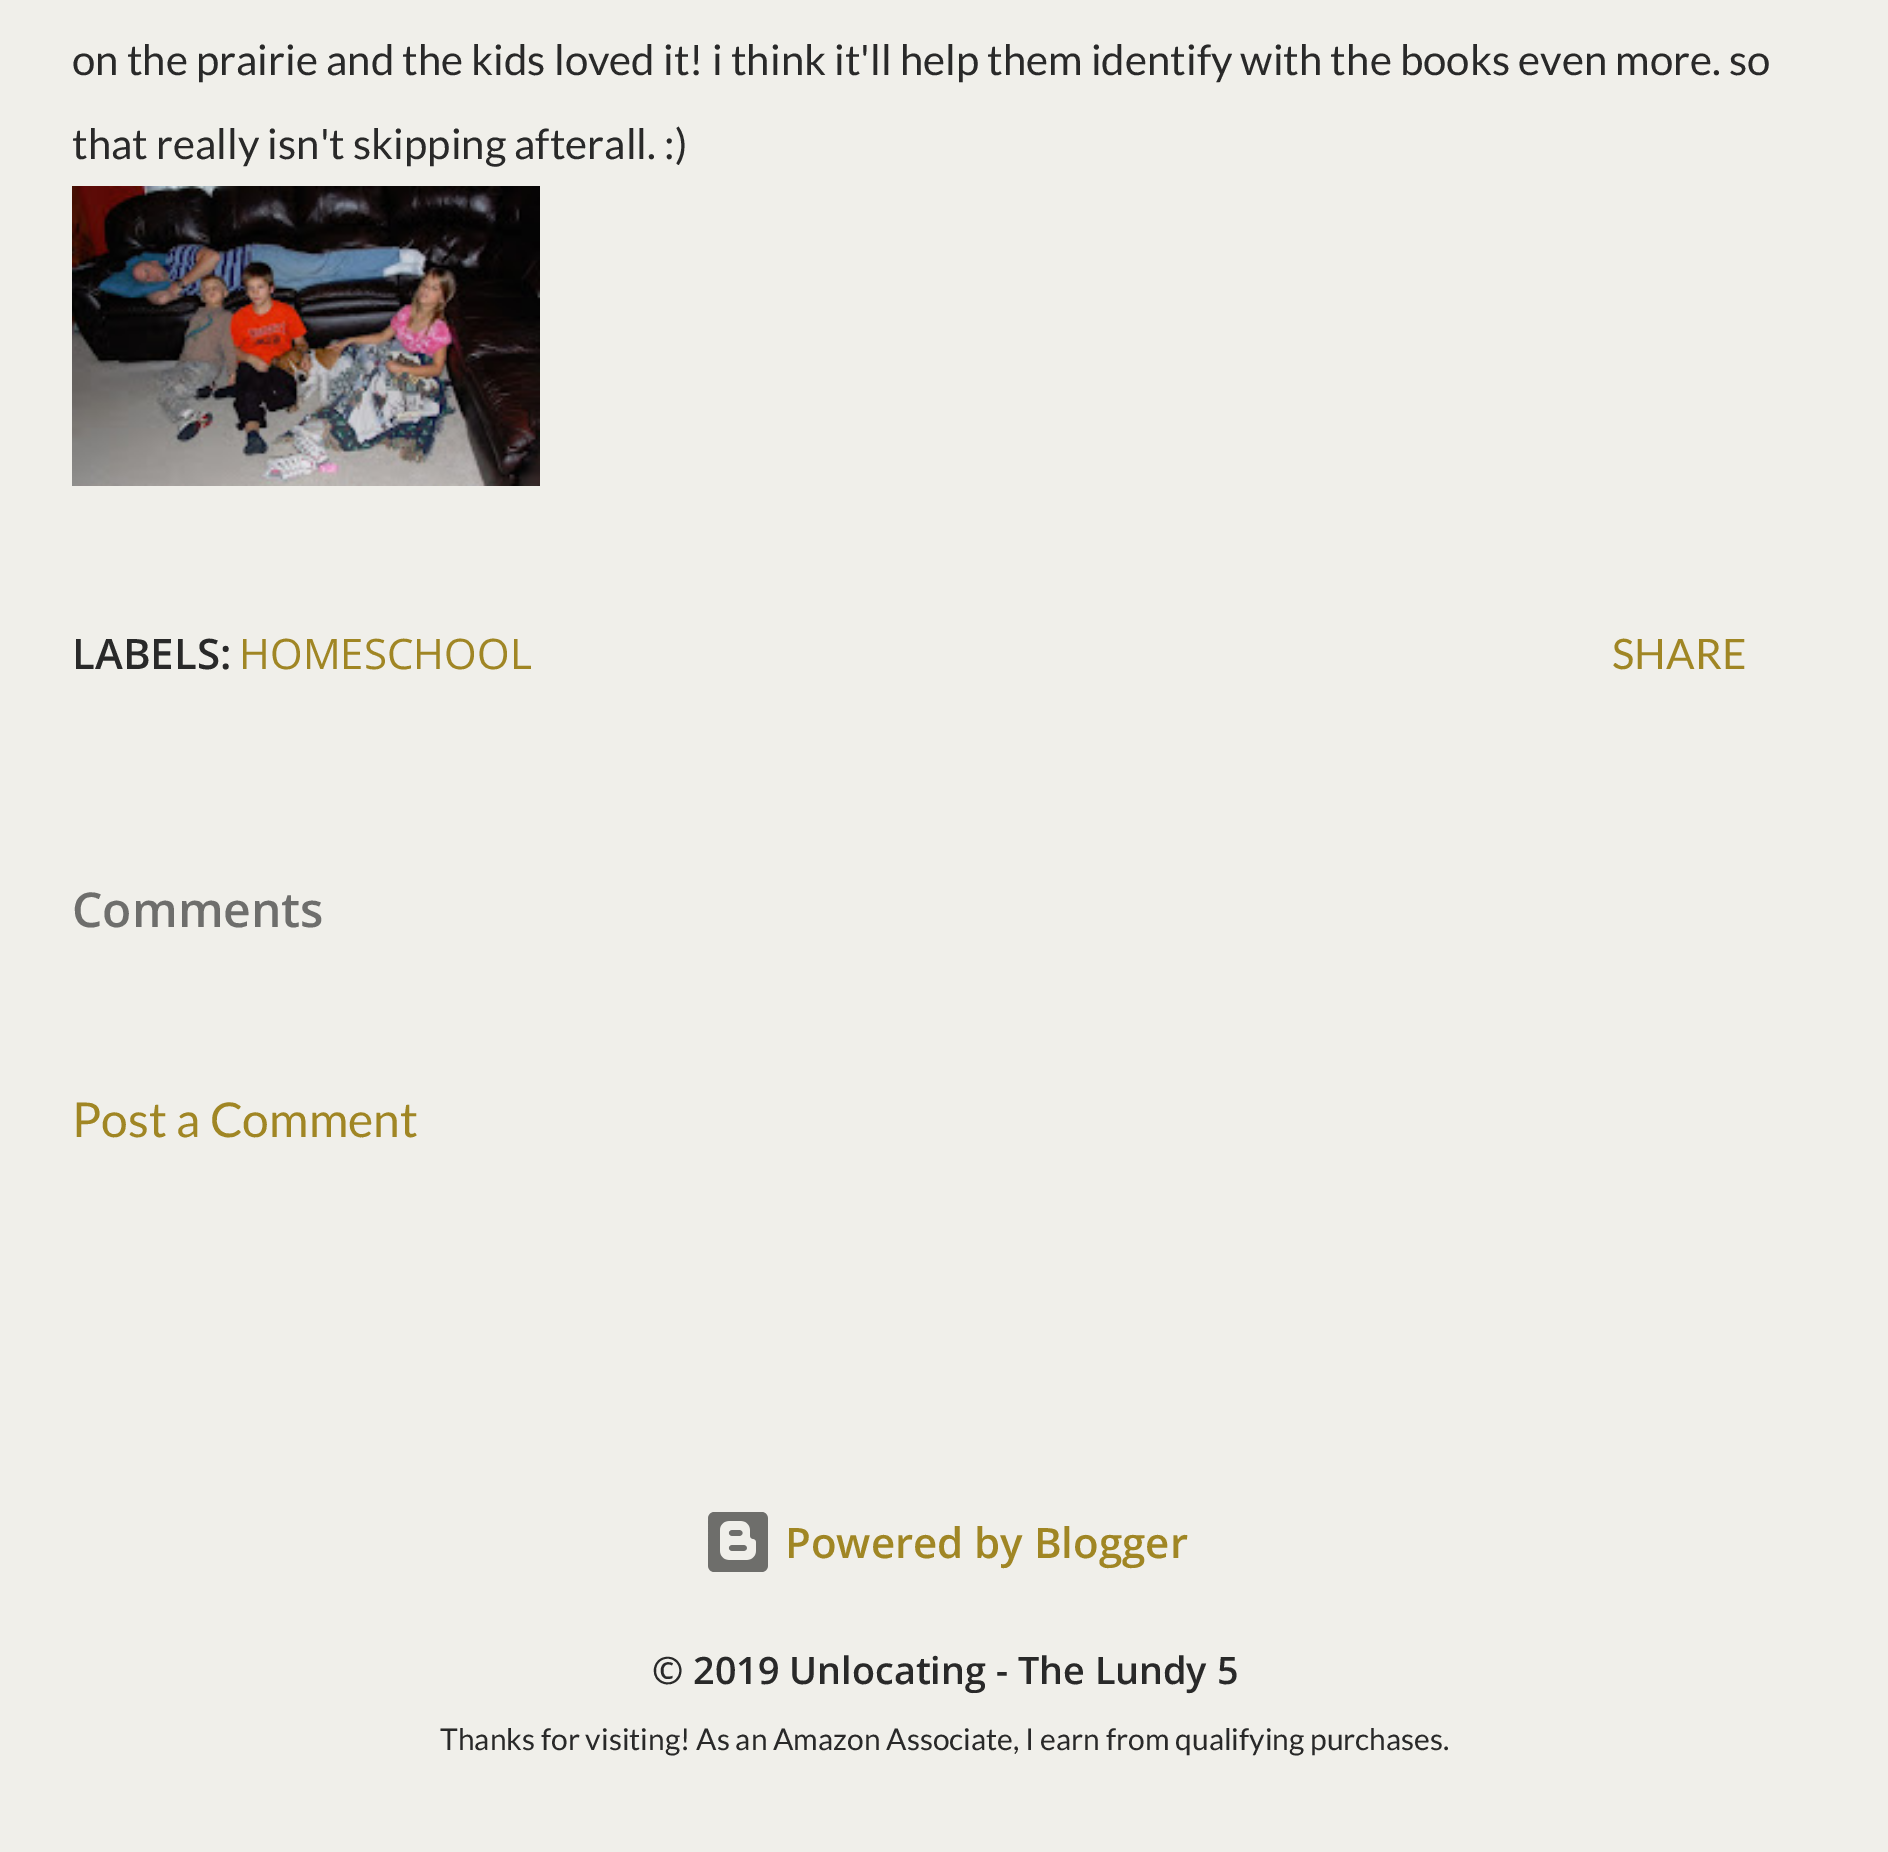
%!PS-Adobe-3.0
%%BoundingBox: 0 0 1888 1852
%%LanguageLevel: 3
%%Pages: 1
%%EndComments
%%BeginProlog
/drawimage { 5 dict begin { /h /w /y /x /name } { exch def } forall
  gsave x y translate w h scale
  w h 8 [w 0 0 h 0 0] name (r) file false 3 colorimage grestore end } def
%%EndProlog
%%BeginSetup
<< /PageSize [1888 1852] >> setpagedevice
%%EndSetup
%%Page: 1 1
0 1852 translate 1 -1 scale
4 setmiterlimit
0.941 0.937 0.918 setrgbcolor
0 0 1888 1852 rectfill
(images/1.raw) 72 186 468 300 drawimage
(images/2.raw) 708 1512 60 60 drawimage
/Lato-Regular [42 0 0 -42 0 0] selectfont
0.161 setgray
72 75 moveto (on the prairie and the kids loved it! i think it'll help them identify with the books even more. so) show
72 159 moveto (that really isn't skipping afterall. :\)) show
/OpenSans-SemiBold [42 0 0 -42 0 0] selectfont
72 669 moveto (LABELS:) show
/OpenSans-Regular [42 0 0 -42 0 0] selectfont
0.627 0.525 0.141 setrgbcolor
239 669 moveto (HOMESCHOOL) show
/Lato-Regular [42 0 0 -42 0 0] selectfont
1612 669 moveto (SHARE) show
/OpenSans-SemiBold [48 0 0 -48 0 0] selectfont
0.431 0.431 0.424 setrgbcolor
72 927 moveto (Comments) show
/Lato-Regular [48 0 0 -48 0 0] selectfont
0.627 0.525 0.141 setrgbcolor
72 1137 moveto (Post a Comment) show
/OpenSans-SemiBold [42 0 0 -42 0 0] selectfont
785 1558 moveto (Powered by Blogger) show
/OpenSans-SemiBold [37.75 0 0 -37.75 0 0] selectfont
0.161 setgray
652 1684 moveto (© 2019 Unlocating - The Lundy 5) show
/Lato-Regular [30 0 0 -30 0 0] selectfont
440 1750 moveto (Thanks for visiting! As an Amazon Associate, I earn from qualifying purchases.) show
showpage
%%EOF
